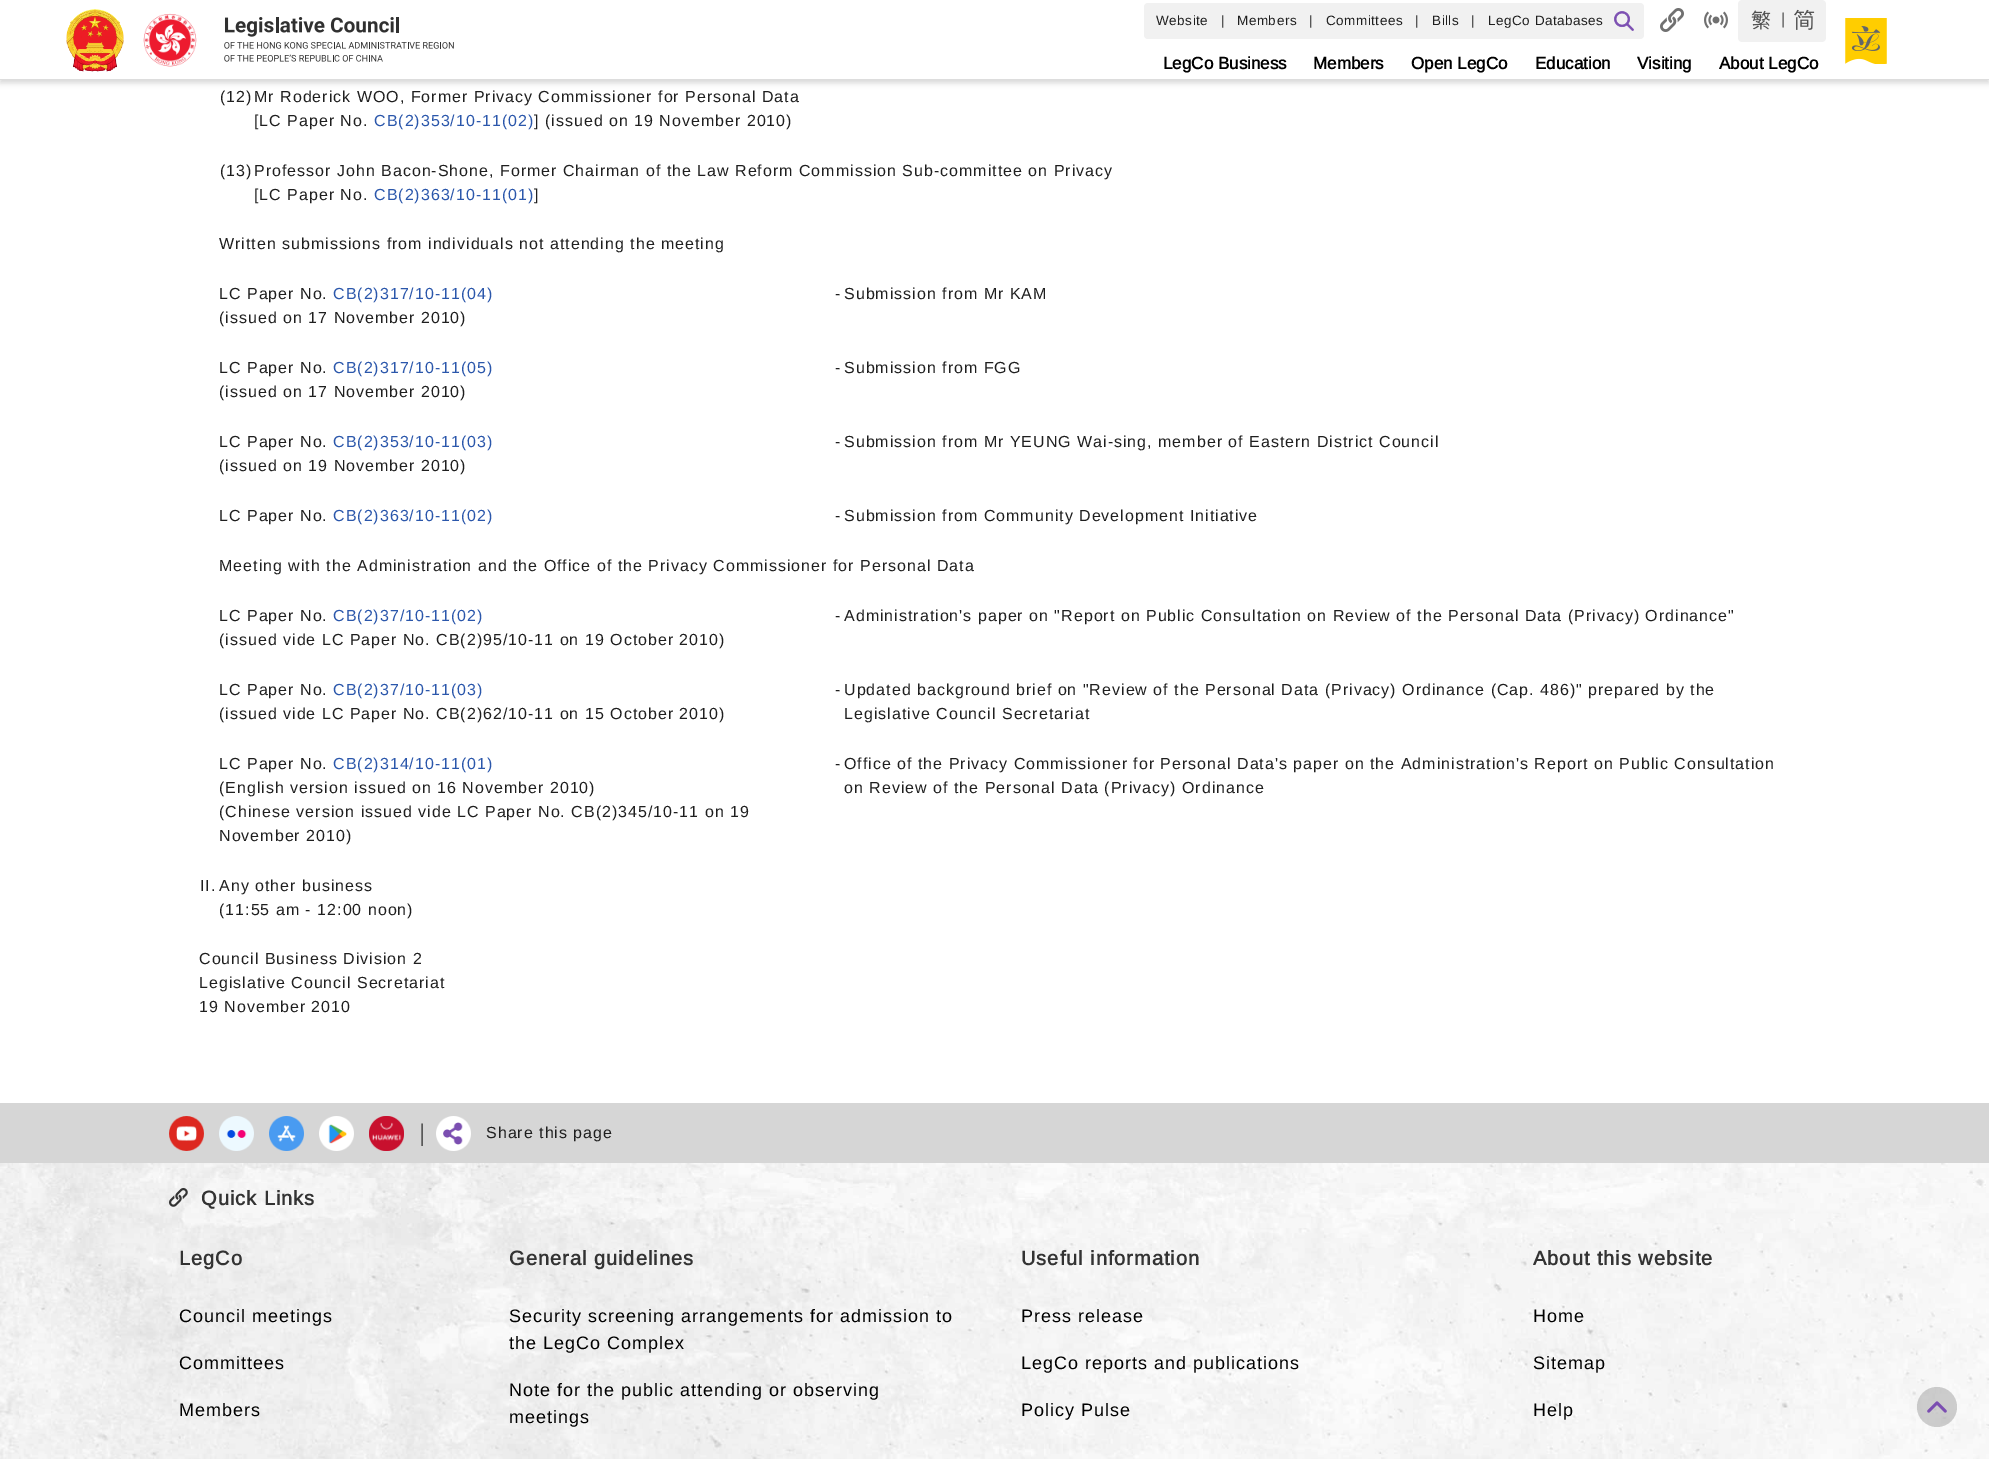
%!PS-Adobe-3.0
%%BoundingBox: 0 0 1989 1459
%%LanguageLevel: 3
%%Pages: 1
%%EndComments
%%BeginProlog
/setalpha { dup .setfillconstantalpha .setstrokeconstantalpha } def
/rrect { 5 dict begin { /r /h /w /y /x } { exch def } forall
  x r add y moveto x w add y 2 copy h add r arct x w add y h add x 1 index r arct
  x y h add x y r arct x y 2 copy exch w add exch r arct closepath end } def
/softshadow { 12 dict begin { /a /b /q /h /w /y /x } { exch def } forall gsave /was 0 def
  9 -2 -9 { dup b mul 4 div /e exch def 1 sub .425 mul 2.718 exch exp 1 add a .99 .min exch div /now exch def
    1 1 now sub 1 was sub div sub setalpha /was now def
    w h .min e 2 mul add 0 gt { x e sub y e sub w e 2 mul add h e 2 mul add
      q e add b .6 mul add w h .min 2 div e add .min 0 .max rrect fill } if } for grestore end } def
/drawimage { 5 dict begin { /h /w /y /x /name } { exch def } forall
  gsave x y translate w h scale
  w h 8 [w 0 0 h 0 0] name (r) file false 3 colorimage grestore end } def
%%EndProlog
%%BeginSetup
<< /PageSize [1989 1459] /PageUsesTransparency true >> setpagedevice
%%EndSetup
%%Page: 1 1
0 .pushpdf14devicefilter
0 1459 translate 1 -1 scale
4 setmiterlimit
1 setgray
0 0 1989 1459 rectfill
0 setgray
0 3 1989 80 0 3 0.16 softshadow
1 setgray
0 0 1989 79 rectfill
0.867 setgray
0 79 1989 1 rectfill
(images/1.raw) 66 9 58 63 drawimage
(images/2.raw) 143 13 54 54 drawimage
(images/3.raw) 224 17 230 45 drawimage
0.945 setgray
1144 3 500 36 4 rrect fill
(images/4.raw) 1614 11 20 20 drawimage
(images/5.raw) 1660 8 24 24 drawimage
(images/6.raw) 1704 11 24 18 drawimage
newpath 1742 0 moveto 1781 0 lineto 1781 42 lineto 1742 42 lineto 1740 42 1738 40 1738 38 curveto 1738 4 lineto 1738 2 1740 0 1742 0 curveto closepath fill
(images/7.raw) 1751 10 20 20 drawimage
1781 0 3 42 rectfill
newpath 1784 0 moveto 1822 0 lineto 1824 0 1826 2 1826 4 curveto 1826 38 lineto 1826 40 1824 42 1822 42 curveto 1784 42 lineto closepath fill
(images/8.raw) 1794 9 21 21 drawimage
(images/9.raw) 1845 18 42 46 drawimage
(images/10.raw) 0 1163 1989 296 drawimage
0.839 setgray
0 1103 1989 60 rectfill
(images/11.raw) 169 1116 35 35 drawimage
(images/12.raw) 219 1116 35 35 drawimage
(images/13.raw) 269 1116 35 35 drawimage
(images/14.raw) 319 1116 35 35 drawimage
(images/15.raw) 369 1116 35 35 drawimage
(images/16.raw) 436 1116 35 35 drawimage
(images/17.raw) 169 1188 19 19 drawimage
0.3 setalpha
0.392 setgray
newpath 1937 1407 20 0 360 arc closepath fill
1 setalpha
(images/18.raw) 1927 1401 20 12 drawimage
/Arimo-Regular [13.5 0 0 -13.5 0 0] selectfont
0.122 setgray
1156 25 moveto 0.5 0 (Website) ashow
1221 25 moveto 1 0 (|) ashow
1237 25 moveto 0.5 0 (Members) ashow
1309 25 moveto 1 0 (|) ashow
1326 25 moveto 0.5 0 (Committees) ashow
1415 25 moveto 1 0 (|) ashow
1432 25 moveto 0.5 0 (Bills) ashow
1471 25 moveto 1 0 (|) ashow
1488 25 moveto 0.5 0 (LegCo Databases) ashow
/Arimo-Regular [16 0 0 -16 0 0] selectfont
0.314 setgray
1781 24 moveto 1 0 (|) ashow
/Arimo-Bold [17 0 0 -17 0 0] selectfont
0 setgray
1163 69 moveto (LegCo Business) show
1313 69 moveto (Members) show
1411 69 moveto (Open LegCo) show
1535 69 moveto (Education) show
1637 69 moveto (Visiting) show
1719 69 moveto (About LegCo) show
/Arimo-Regular [16 0 0 -16 0 0] selectfont
0.122 setgray
220 102 moveto 1 0 (\(12\)) ashow
254 102 moveto 1 0 (Mr Roderick WOO, Former Privacy Commissioner for Personal Data) ashow
254 126 moveto 1 0 ([LC Paper No.) ashow
0.169 0.341 0.671 setrgbcolor
374 126 moveto 1 0 (CB\(2\)353/10-11\(02\)) ashow
0.122 setgray
534 126 moveto 1 0 (] \(issued on 19 November 2010\)) ashow
220 176 moveto 1 0 (\(13\)) ashow
254 176 moveto 1 0 (Professor John Bacon-Shone, Former Chairman of the Law Reform Commission Sub-committee on Privacy) ashow
254 200 moveto 1 0 ([LC Paper No.) ashow
0.169 0.341 0.671 setrgbcolor
374 200 moveto 1 0 (CB\(2\)363/10-11\(01\)) ashow
0.122 setgray
534 200 moveto 1 0 (]) ashow
219 249 moveto 1 0 (Written submissions from individuals not attending the meeting) ashow
219 299 moveto 1 0 (LC Paper No.) ashow
0.169 0.341 0.671 setrgbcolor
333 299 moveto 1 0 (CB\(2\)317/10-11\(04\)) ashow
0.122 setgray
219 323 moveto 1 0 (\(issued on 17 November 2010\)) ashow
835 299 moveto 1 0 (-) ashow
844 299 moveto 1 0 (Submission from Mr KAM) ashow
219 373 moveto 1 0 (LC Paper No.) ashow
0.169 0.341 0.671 setrgbcolor
333 373 moveto 1 0 (CB\(2\)317/10-11\(05\)) ashow
0.122 setgray
219 397 moveto 1 0 (\(issued on 17 November 2010\)) ashow
835 373 moveto 1 0 (-) ashow
844 373 moveto 1 0 (Submission from FGG) ashow
219 447 moveto 1 0 (LC Paper No.) ashow
0.169 0.341 0.671 setrgbcolor
333 447 moveto 1 0 (CB\(2\)353/10-11\(03\)) ashow
0.122 setgray
219 471 moveto 1 0 (\(issued on 19 November 2010\)) ashow
835 447 moveto 1 0 (-) ashow
844 447 moveto 1 0 (Submission from Mr YEUNG Wai-sing, member of Eastern District Council) ashow
219 521 moveto 1 0 (LC Paper No.) ashow
0.169 0.341 0.671 setrgbcolor
333 521 moveto 1 0 (CB\(2\)363/10-11\(02\)) ashow
0.122 setgray
835 521 moveto 1 0 (-) ashow
844 521 moveto 1 0 (Submission from Community Development Initiative) ashow
219 571 moveto 1 0 (Meeting with the Administration and the Office of the Privacy Commissioner for Personal Data) ashow
219 621 moveto 1 0 (LC Paper No.) ashow
0.169 0.341 0.671 setrgbcolor
333 621 moveto 1 0 (CB\(2\)37/10-11\(02\)) ashow
0.122 setgray
219 645 moveto 1 0 (\(issued vide LC Paper No. CB\(2\)95/10-11 on 19 October 2010\)) ashow
835 621 moveto 1 0 (-) ashow
844 621 moveto 1 0 (Administration's paper on "Report on Public Consultation on Review of the Personal Data \(Privacy\) Ordinance") ashow
219 695 moveto 1 0 (LC Paper No.) ashow
0.169 0.341 0.671 setrgbcolor
333 695 moveto 1 0 (CB\(2\)37/10-11\(03\)) ashow
0.122 setgray
219 719 moveto 1 0 (\(issued vide LC Paper No. CB\(2\)62/10-11 on 15 October 2010\)) ashow
835 695 moveto 1 0 (-) ashow
844 695 moveto 1 0 (Updated background brief on "Review of the Personal Data \(Privacy\) Ordinance \(Cap. 486\)" prepared by the) ashow
844 719 moveto 1 0 (Legislative Council Secretariat) ashow
219 769 moveto 1 0 (LC Paper No.) ashow
0.169 0.341 0.671 setrgbcolor
333 769 moveto 1 0 (CB\(2\)314/10-11\(01\)) ashow
0.122 setgray
219 793 moveto 1 0 (\(English version issued on 16 November 2010\)) ashow
219 817 moveto 1 0 (\(Chinese version issued vide LC Paper No. CB\(2\)345/10-11 on 19) ashow
219 841 moveto 1 0 (November 2010\)) ashow
835 769 moveto 1 0 (-) ashow
844 769 moveto 1 0 (Office of the Privacy Commissioner for Personal Data's paper on the Administration's Report on Public Consultation) ashow
844 793 moveto 1 0 (on Review of the Personal Data \(Privacy\) Ordinance) ashow
200 891 moveto 1 0 (II.) ashow
219 891 moveto 1 0 (Any other business) ashow
219 915 moveto 1 0 (\(11:55 am - 12:00 noon\)) ashow
199 964 moveto 1 0 (Council Business Division 2) ashow
199 988 moveto 1 0 (Legislative Council Secretariat) ashow
199 1012 moveto 1 0 (19 November 2010) ashow
/Arimo-Regular [24 0 0 -24 0 0] selectfont
0.349 setgray
419 1141 moveto 1 0 (|) ashow
/Arimo-Regular [16 0 0 -16 0 0] selectfont
0.122 setgray
486 1138 moveto 1 0 (Share this page) ashow
/Arimo-Bold [20 0 0 -20 0 0] selectfont
0.2 setgray
201 1205 moveto 1 0 (Quick Links) ashow
179 1265 moveto 1 0 (LegCo) ashow
/Arimo-Regular [18 0 0 -18 0 0] selectfont
0 setgray
179 1322 moveto 1 0 (Council meetings) ashow
179 1369 moveto 1 0 (Committees) ashow
179 1416 moveto 1 0 (Members) ashow
/Arimo-Bold [20 0 0 -20 0 0] selectfont
0.2 setgray
509 1265 moveto 1 0 (General guidelines) ashow
/Arimo-Regular [18 0 0 -18 0 0] selectfont
0 setgray
509 1322 moveto 1 0 (Security screening arrangements for admission to) ashow
509 1349 moveto 1 0 (the LegCo Complex) ashow
509 1396 moveto 1 0 (Note for the public attending or observing) ashow
509 1423 moveto 1 0 (meetings) ashow
/Arimo-Bold [20 0 0 -20 0 0] selectfont
0.2 setgray
1021 1265 moveto 1 0 (Useful information) ashow
/Arimo-Regular [18 0 0 -18 0 0] selectfont
0 setgray
1021 1322 moveto 1 0 (Press release) ashow
1021 1369 moveto 1 0 (LegCo reports and publications) ashow
1021 1416 moveto 1 0 (Policy Pulse) ashow
/Arimo-Bold [20 0 0 -20 0 0] selectfont
0.2 setgray
1533 1265 moveto 1 0 (About this website) ashow
/Arimo-Regular [18 0 0 -18 0 0] selectfont
0 setgray
1533 1322 moveto 1 0 (Home) ashow
1533 1369 moveto 1 0 (Sitemap) ashow
1533 1416 moveto 1 0 (Help) ashow
.poppdf14devicefilter showpage
%%EOF
